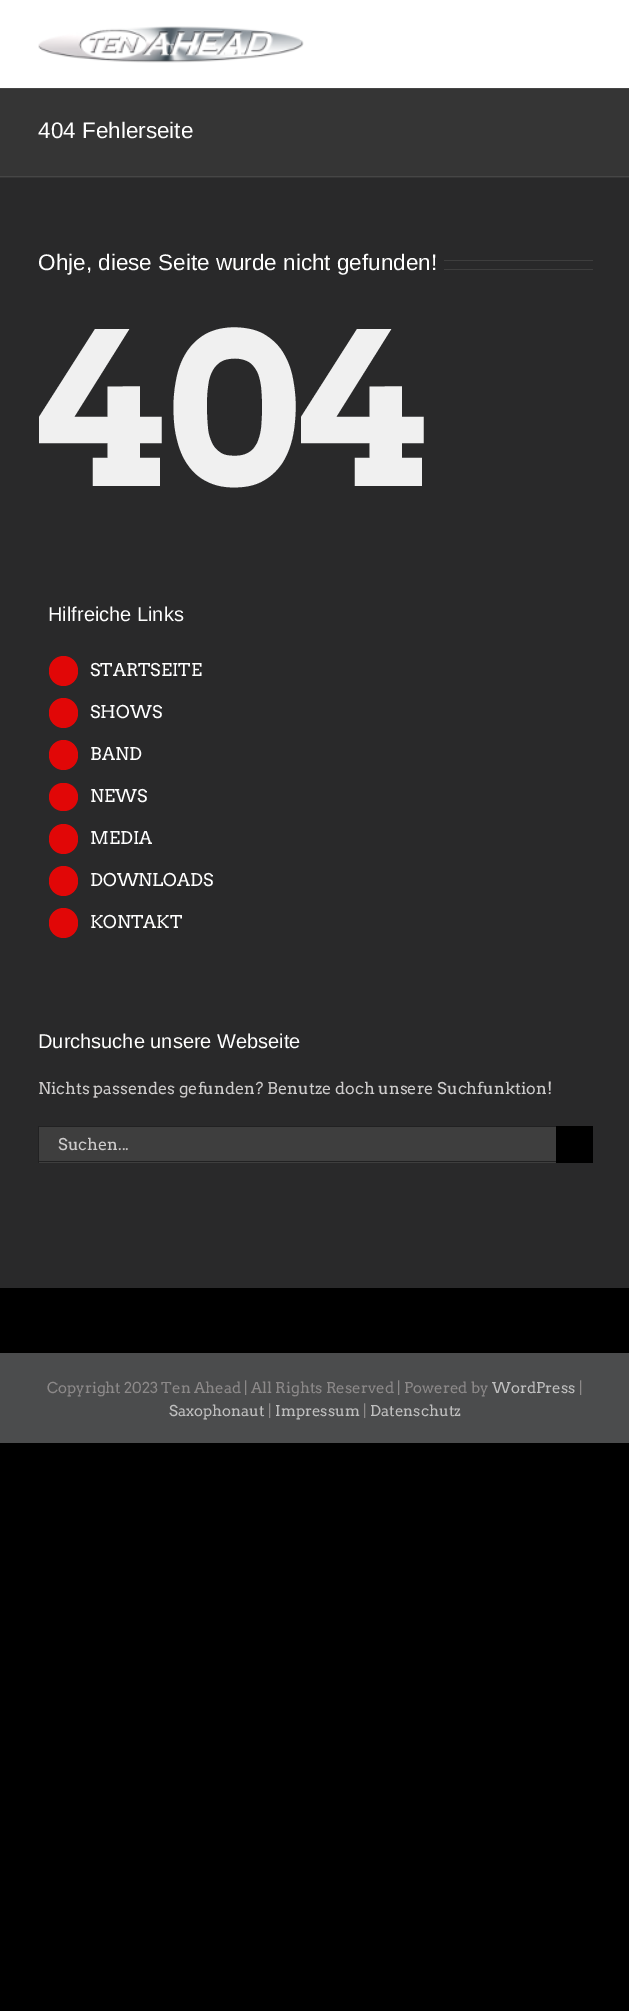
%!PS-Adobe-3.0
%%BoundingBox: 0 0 629 2011
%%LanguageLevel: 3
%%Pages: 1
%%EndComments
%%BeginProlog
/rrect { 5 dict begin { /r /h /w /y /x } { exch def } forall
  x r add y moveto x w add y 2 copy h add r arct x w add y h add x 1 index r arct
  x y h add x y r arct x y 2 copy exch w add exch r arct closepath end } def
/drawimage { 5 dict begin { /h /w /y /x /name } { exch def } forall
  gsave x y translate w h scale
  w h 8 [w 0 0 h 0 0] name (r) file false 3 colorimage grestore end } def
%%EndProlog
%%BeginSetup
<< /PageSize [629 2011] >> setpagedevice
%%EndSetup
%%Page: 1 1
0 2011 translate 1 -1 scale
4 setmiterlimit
0 setgray
0 0 629 2011 rectfill
1 setgray
0 0 629 88 rectfill
(images/1.raw) 38 26 266 37 drawimage
0.208 setgray
0 89 629 89 rectfill
0.275 setgray
0 88 629 1 rectfill
0 176 629 1 rectfill
0.161 0.161 0.165 setrgbcolor
0 178 629 1110 rectfill
0.243 setgray
444 260 149 1 rectfill
444 269 149 1 rectfill
0.882 0.027 0.027 setrgbcolor
49 656 29 30 14.5 rrect fill
49 698 29 30 14.5 rrect fill
49 740 29 30 14.5 rrect fill
49 783 29 28 14 rrect fill
49 824 29 30 14.5 rrect fill
49 866 29 30 14.5 rrect fill
49 908 29 30 14.5 rrect fill
0.243 setgray
39 1127 517 36 rectfill
0.129 0.129 0.133 setrgbcolor
38 1126 518 1 rectfill
38 1161 518 1 rectfill
38 1126 1 37 rectfill
0 setgray
556 1126 37 37 rectfill
0.294 0.298 0.302 setrgbcolor
0 1353 629 90 rectfill
/LiberationSans-Regular [22.5 0 0 -22.5 0 0] selectfont
1 setgray
38 138 moveto (404 Fehlerseite) show
38 270 moveto (Ohje, diese Seite wurde nicht gefunden!) show
/Arvo-Bold [212 0 0 -212 0 0] selectfont
0.941 setgray
38 486 moveto (404) show
/LiberationSans-Regular [20 0 0 -20 0 0] selectfont
1 setgray
48 621 moveto (Hilfreiche Links) show
/Arvo-Regular [17.5 0 0 -17.5 0 0] selectfont
90 676 moveto (STARTSEITE) show
90 718 moveto (SHOWS) show
90 760 moveto (BAND) show
90 802 moveto (NEWS) show
90 844 moveto (MEDIA) show
90 886 moveto (DOWNLOADS) show
90 928 moveto (KONTAKT) show
/LiberationSans-Regular [20 0 0 -20 0 0] selectfont
38 1048 moveto (Durchsuche unsere Webseite) show
/Arvo-Regular [16.25 0 0 -16.25 0 0] selectfont
0.808 0.8 0.8 setrgbcolor
38 1094 moveto (Nichts passendes gefunden? Benutze doch unsere Suchfunktion!) show
58 1150 moveto (Suchen...) show
/Arvo-Regular [15 0 0 -15 0 0] selectfont
0.549 0.537 0.537 setrgbcolor
47 1393 moveto (Copyright 2023 Ten Ahead | All Rights Reserved | Powered by) show
0.749 setgray
492 1393 moveto (WordPress) show
0.549 0.537 0.537 setrgbcolor
579 1393 moveto (|) show
0.749 setgray
169 1416 moveto (Saxophonaut) show
0.549 0.537 0.537 setrgbcolor
268 1416 moveto (|) show
0.749 setgray
275 1416 moveto (Impressum) show
0.549 0.537 0.537 setrgbcolor
363 1416 moveto (|) show
0.749 setgray
370 1416 moveto (Datenschutz) show
showpage
%%EOF
